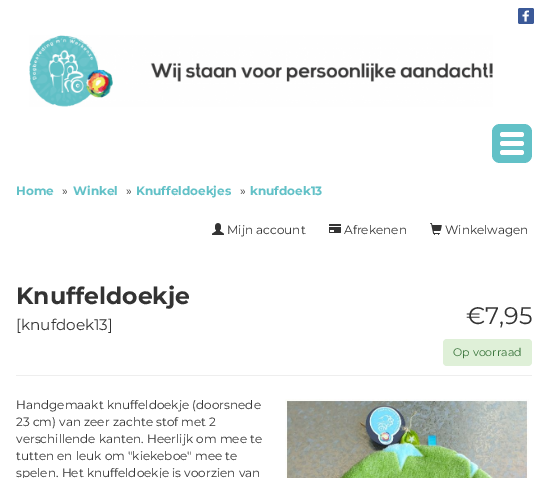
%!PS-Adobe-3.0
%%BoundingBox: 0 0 547 478
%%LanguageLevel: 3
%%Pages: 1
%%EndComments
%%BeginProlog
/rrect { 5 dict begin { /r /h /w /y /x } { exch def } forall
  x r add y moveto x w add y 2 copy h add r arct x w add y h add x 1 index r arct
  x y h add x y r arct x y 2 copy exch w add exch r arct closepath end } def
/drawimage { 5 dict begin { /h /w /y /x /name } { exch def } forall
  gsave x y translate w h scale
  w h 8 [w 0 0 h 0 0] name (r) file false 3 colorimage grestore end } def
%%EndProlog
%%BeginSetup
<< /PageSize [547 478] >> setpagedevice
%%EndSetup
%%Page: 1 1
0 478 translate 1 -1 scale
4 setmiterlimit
1 setgray
0 0 547 478 rectfill
0.231 0.349 0.596 setrgbcolor
518 8 16 16 2 rrect fill
(images/1.raw) 522 10 7 12 drawimage
(images/2.raw) 29 35 464 72 drawimage
0.384 0.757 0.78 setrgbcolor
492 124 40 39 8 rrect fill
1 setgray
500 132 24 5 2.5 rrect fill
500 141 24 5 2.5 rrect fill
500 150 24 5 2.5 rrect fill
(images/3.raw) 212 223 12 12 drawimage
(images/4.raw) 329 224 12 9 drawimage
(images/5.raw) 430 223 12 12 drawimage
0.933 setgray
16 375 516 1 rectfill
0.875 0.941 0.847 setrgbcolor
443 339 89 27 4 rrect fill
(images/6.raw) 285 399 244 79 drawimage
/Montserrat-Bold [12 0 0 -12 0 0] selectfont
0.384 0.757 0.78 setrgbcolor
16 195 moveto (Home) show
/Montserrat-Regular [12 0 0 -12 0 0] selectfont
0.2 setgray
62 195 moveto (») show
/Montserrat-Bold [12 0 0 -12 0 0] selectfont
0.384 0.757 0.78 setrgbcolor
73 195 moveto (Winkel) show
/Montserrat-Regular [12 0 0 -12 0 0] selectfont
0.2 setgray
126 195 moveto (») show
/Montserrat-Bold [12 0 0 -12 0 0] selectfont
0.384 0.757 0.78 setrgbcolor
136 195 moveto (Knuffeldoekjes) show
/Montserrat-Regular [12 0 0 -12 0 0] selectfont
0.2 setgray
240 195 moveto (») show
/Montserrat-Bold [12 0 0 -12 0 0] selectfont
0.384 0.757 0.78 setrgbcolor
250 195 moveto (knufdoek13) show
/Montserrat-Regular [12 0 0 -12 0 0] selectfont
0.2 setgray
227 234 moveto (Mijn account) show
344 234 moveto (Afrekenen) show
445 234 moveto (Winkelwagen) show
/Montserrat-Bold [23.5 0 0 -23.5 0 0] selectfont
16 304 moveto (Knuffeldoekje) show
/Montserrat-Regular [15.25 0 0 -15.25 0 0] selectfont
16 330 moveto ([knufdoek13]) show
/Montserrat-Regular [24 0 0 -24 0 0] selectfont
466 324 moveto (€7,95) show
/Montserrat-Regular [11 0 0 -11 0 0] selectfont
0.235 0.463 0.239 setrgbcolor
453 356 moveto (Op voorraad) show
/Montserrat-Regular [12 0 0 -12 0 0] selectfont
0.2 setgray
16 409 moveto (Handgemaakt knuffeldoekje \(doorsnede) show
16 426 moveto (23 cm\) van zeer zachte stof met 2) show
16 443 moveto (verschillende kanten. Heerlijk om mee te) show
16 460 moveto (tutten en leuk om "kiekeboe" mee te) show
16 477 moveto (spelen. Het knuffeldoekje is voorzien van) show
showpage
%%EOF
